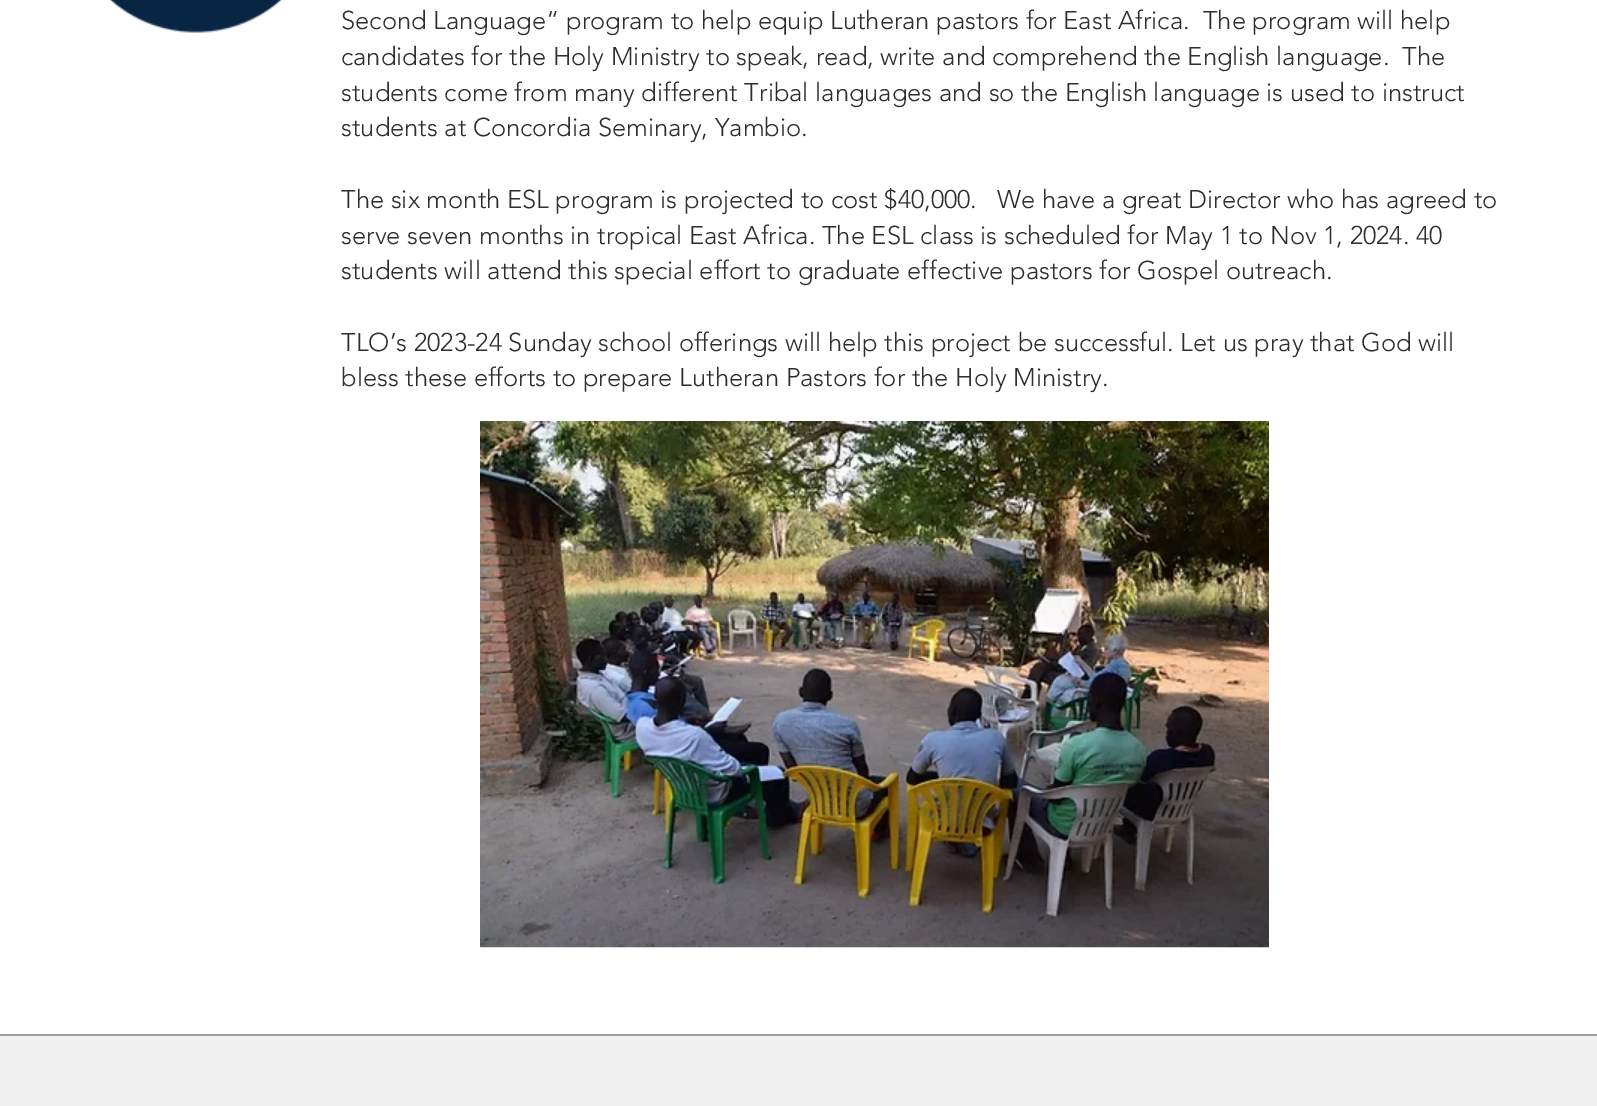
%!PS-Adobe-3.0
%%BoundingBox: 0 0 1597 1106
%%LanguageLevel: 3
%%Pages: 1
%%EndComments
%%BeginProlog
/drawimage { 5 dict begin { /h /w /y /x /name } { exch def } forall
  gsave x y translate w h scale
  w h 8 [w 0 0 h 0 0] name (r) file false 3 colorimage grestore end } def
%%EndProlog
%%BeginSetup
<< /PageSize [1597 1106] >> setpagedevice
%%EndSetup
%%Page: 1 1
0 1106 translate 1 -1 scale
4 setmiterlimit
1 setgray
0 0 1597 1106 rectfill
(images/1.raw) 109 0 173 33 drawimage
(images/2.raw) 480 421 789 527 drawimage
0.941 setgray
0 1036 1597 70 rectfill
0.627 0.627 0.624 setrgbcolor
0 1034 1597 2 rectfill
/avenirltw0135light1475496-Light [25.5 0 0 -25.5 0 0] selectfont
0.184 0.18 0.18 setrgbcolor
341 29 moveto (Second Language“ program to help equip Lutheran pastors for East Africa.  The program will help) show
341 65 moveto (candidates for the Holy Ministry to speak, read, write and comprehend the English language.  The) show
341 101 moveto (students come from many different Tribal languages and so the English language is used to instruct) show
341 136 moveto (students at Concordia Seminary, Yambio.) show
341 208 moveto (The six month ESL program is projected to cost $40,000.   We have a great Director who has agreed to) show
341 244 moveto (serve seven months in tropical East Africa. The ESL class is scheduled for May 1 to Nov 1, 2024. 40) show
341 279 moveto (students will attend this special effort to graduate effective pastors for Gospel outreach.) show
341 351 moveto (TLO’s 2023-24 Sunday school offerings will help this project be successful. Let us pray that God will) show
341 386 moveto (bless these efforts to prepare Lutheran Pastors for the Holy Ministry.) show
showpage
%%EOF
